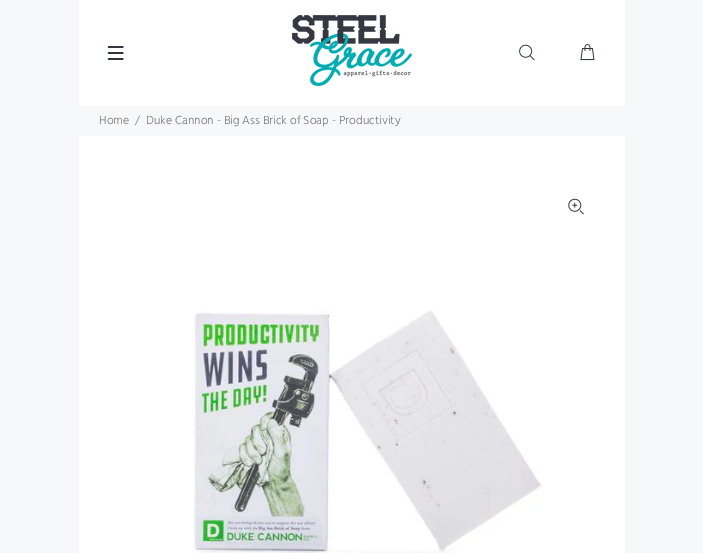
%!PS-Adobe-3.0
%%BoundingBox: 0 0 703 553
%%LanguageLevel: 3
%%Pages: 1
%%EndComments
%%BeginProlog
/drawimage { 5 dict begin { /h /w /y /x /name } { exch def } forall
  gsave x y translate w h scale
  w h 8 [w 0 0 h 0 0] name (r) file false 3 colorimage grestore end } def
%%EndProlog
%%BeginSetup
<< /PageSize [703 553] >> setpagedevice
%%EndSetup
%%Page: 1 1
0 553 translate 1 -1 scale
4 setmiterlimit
0.969 0.973 0.98 setrgbcolor
0 0 703 553 rectfill
1 setgray
79 0 546 553 rectfill
(images/1.raw) 107 46 17 14 drawimage
(images/2.raw) 292 15 120 71 drawimage
(images/3.raw) 519 44 16 17 drawimage
(images/4.raw) 580 44 15 17 drawimage
0.969 0.973 0.98 setrgbcolor
79 106 546 30 rectfill
(images/5.raw) 568 198 16 17 drawimage
(images/6.raw) 194 310 348 243 drawimage
/Hind-Light [12 0 0 -12 0 0] selectfont
0.467 setgray
99 124 moveto (Home) show
135 124 moveto (/) show
146 124 moveto (Duke Cannon - Big Ass Brick of Soap - Productivity) show
showpage
%%EOF
